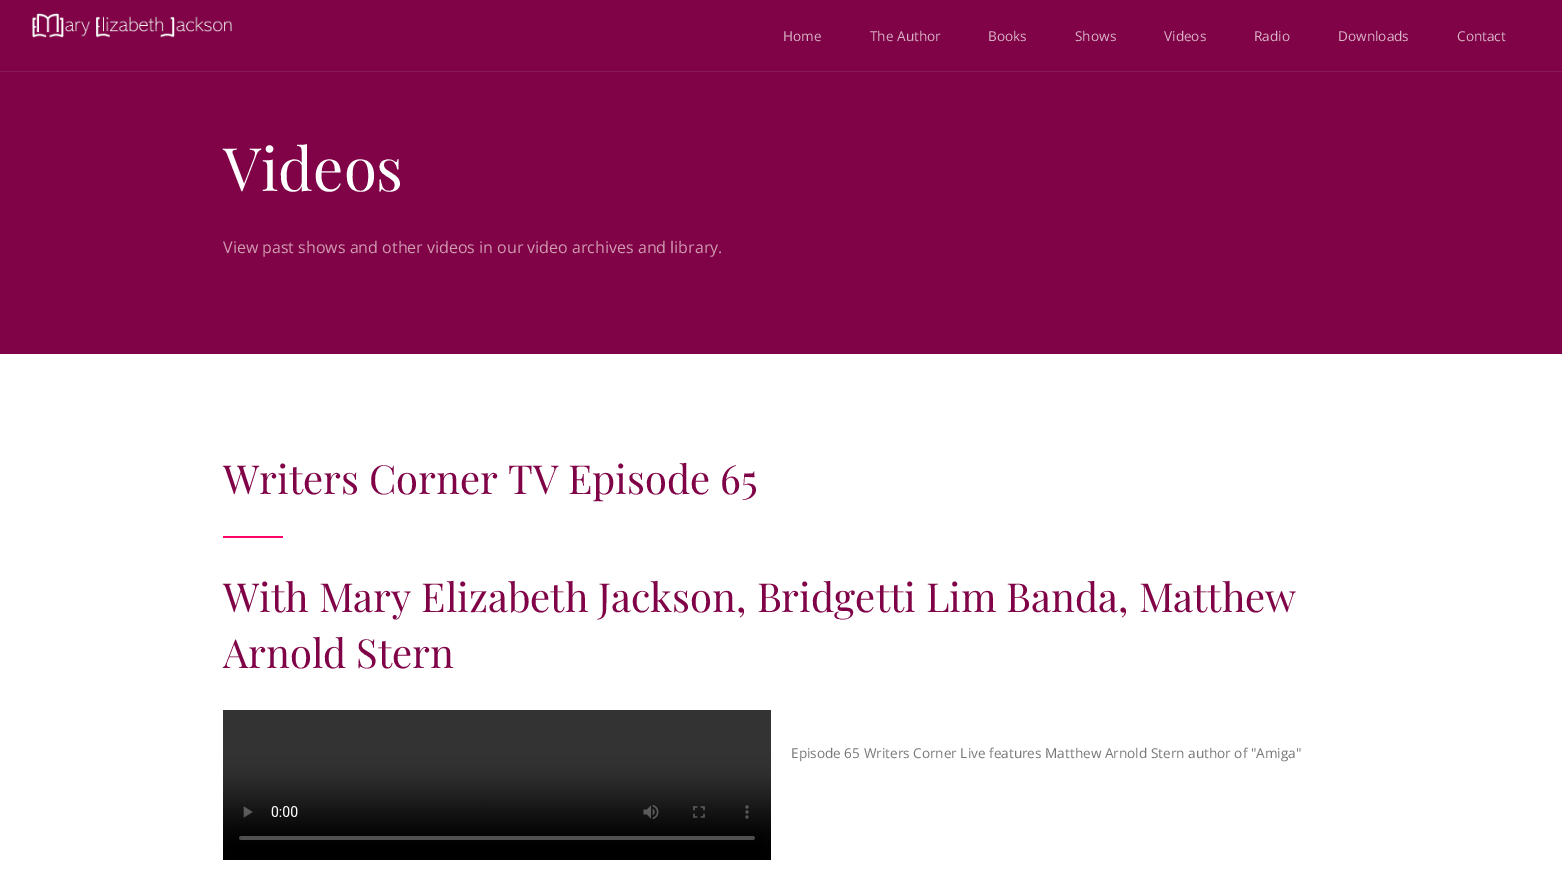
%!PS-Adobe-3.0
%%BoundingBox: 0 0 1562 888
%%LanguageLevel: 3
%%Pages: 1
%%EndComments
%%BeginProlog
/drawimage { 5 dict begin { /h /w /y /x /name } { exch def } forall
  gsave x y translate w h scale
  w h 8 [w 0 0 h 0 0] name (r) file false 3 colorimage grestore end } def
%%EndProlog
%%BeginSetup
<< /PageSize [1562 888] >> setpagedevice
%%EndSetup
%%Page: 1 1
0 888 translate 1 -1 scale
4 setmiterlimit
1 setgray
0 0 1562 888 rectfill
0.478 0.012 0.263 setrgbcolor
0 0 1562 1 rectfill
0.502 0.012 0.278 setrgbcolor
0 1 1562 353 rectfill
0.545 0.102 0.345 setrgbcolor
0 71 1562 1 rectfill
(images/1.raw) 32 13 200 25 drawimage
0.988 0.02 0.408 setrgbcolor
223 536 60 2 rectfill
(images/2.raw) 223 710 548 150 drawimage
/OpenSans-Regular [13.6 0 0 -13.6 0 0] selectfont
0.851 0.702 0.784 setrgbcolor
783 41 moveto (Home) show
870 41 moveto (The Author) show
988 41 moveto (Books) show
1075 41 moveto (Shows) show
1164 41 moveto (Videos) show
1254 41 moveto (Radio) show
1338 41 moveto (Downloads) show
1457 41 moveto (Contact) show
/PlayfairDisplay-Regular [60 0 0 -60 0 0] selectfont
1 setgray
223 191 moveto (Videos) show
/OpenSans-Regular [16 0 0 -16 0 0] selectfont
0.82 0.608 0.694 setrgbcolor
223 253 moveto (View past shows and other videos in our video archives and library.) show
/PlayfairDisplay-Regular [40 0 0 -40 0 0] selectfont
0.502 0.012 0.278 setrgbcolor
223 494 moveto (Writers Corner TV Episode 65) show
223 612 moveto (With Mary Elizabeth Jackson, Bridgetti Lim Banda, Matthew) show
223 668 moveto (Arnold Stern) show
/OpenSans-Regular [13.6 0 0 -13.6 0 0] selectfont
0.467 setgray
791 758 moveto (Episode 65 Writers Corner Live features Matthew Arnold Stern author of "Amiga") show
showpage
%%EOF
